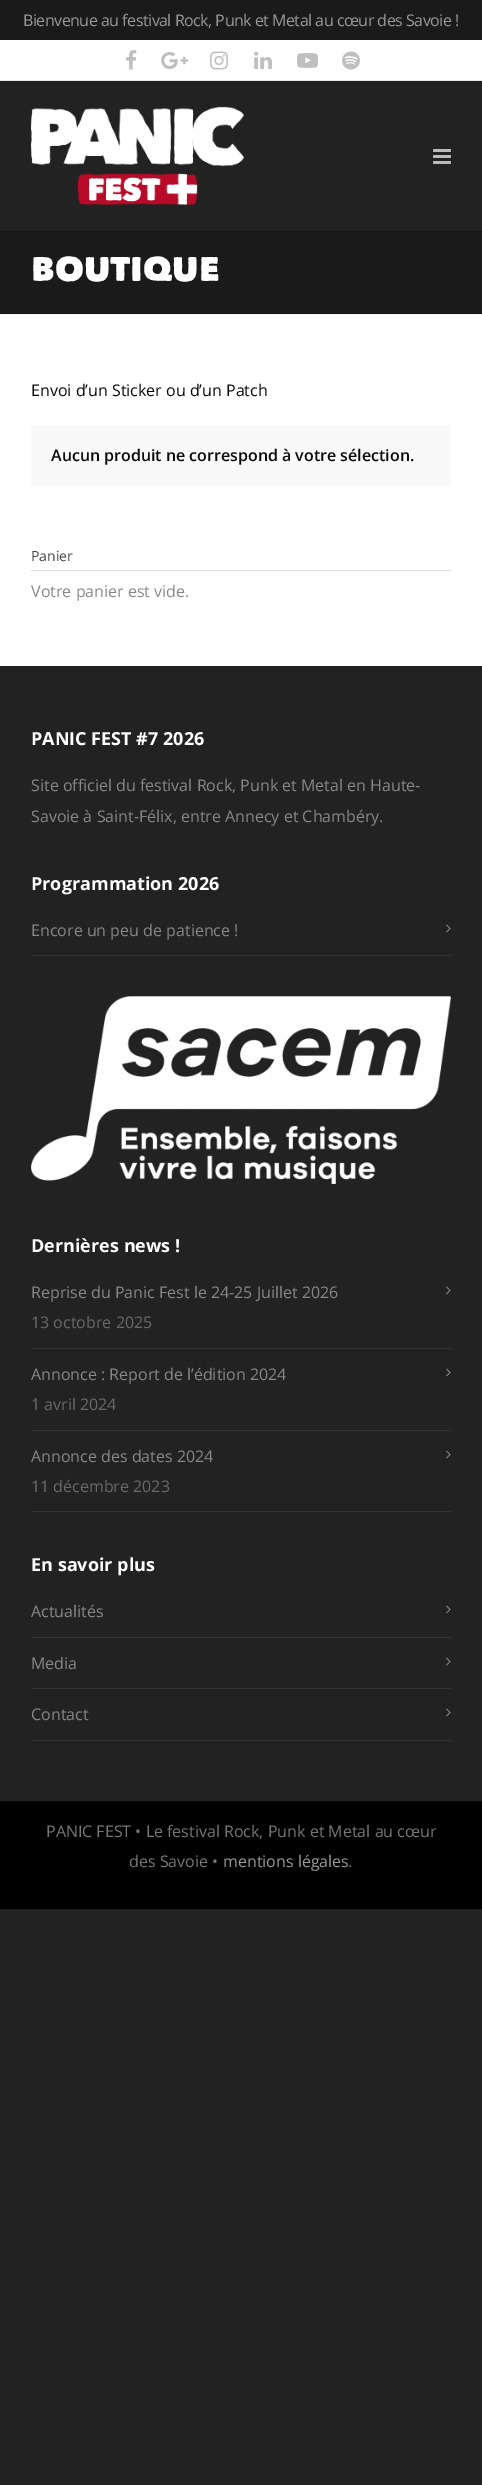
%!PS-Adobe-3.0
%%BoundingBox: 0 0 482 2485
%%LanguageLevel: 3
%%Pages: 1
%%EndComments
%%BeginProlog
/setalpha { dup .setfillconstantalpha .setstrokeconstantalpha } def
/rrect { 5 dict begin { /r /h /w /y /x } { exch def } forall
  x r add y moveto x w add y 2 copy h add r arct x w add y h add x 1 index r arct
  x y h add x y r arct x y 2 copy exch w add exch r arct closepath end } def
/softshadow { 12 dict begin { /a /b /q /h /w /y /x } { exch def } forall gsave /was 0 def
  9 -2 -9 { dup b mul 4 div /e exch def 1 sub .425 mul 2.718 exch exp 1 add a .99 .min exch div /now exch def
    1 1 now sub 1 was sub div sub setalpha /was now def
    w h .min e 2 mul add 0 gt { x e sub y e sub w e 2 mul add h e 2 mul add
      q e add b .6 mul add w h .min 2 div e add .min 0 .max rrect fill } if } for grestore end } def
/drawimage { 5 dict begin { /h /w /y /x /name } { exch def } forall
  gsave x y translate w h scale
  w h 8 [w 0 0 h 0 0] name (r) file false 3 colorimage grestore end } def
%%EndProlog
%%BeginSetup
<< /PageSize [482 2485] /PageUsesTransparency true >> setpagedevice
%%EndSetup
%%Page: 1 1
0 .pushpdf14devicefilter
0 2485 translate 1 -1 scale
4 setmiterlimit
0.133 setgray
0 0 482 2485 rectfill
1 setgray
0 40 482 626 rectfill
0.102 setgray
0 231 482 83 rectfill
0 setgray
-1 80 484 152 0 1 0.16 softshadow
0.9 setalpha
1 setgray
0 79 482 1 rectfill
1 setalpha
0.91 setgray
0 80 482 1 rectfill
0.102 setgray
0 0 482 40 rectfill
(images/1.raw) 126 50 11 20 drawimage
(images/2.raw) 161 51 27 19 drawimage
(images/3.raw) 210 51 18 19 drawimage
(images/4.raw) 254 51 18 18 drawimage
(images/5.raw) 297 53 21 15 drawimage
(images/6.raw) 342 51 18 19 drawimage
0.133 setgray
0 81 482 150 rectfill
(images/7.raw) 31 106 213 100 drawimage
(images/8.raw) 433 149 18 15 drawimage
0.945 setgray
0 314 482 1 rectfill
0.976 setgray
31 425 420 61 2 rrect fill
0.867 setgray
31 570 420 1 rectfill
0.2 setgray
31 955 420 1 rectfill
(images/9.raw) 446 924 5 9 drawimage
(images/10.raw) 31 996 420 188 drawimage
31 1348 420 1 rectfill
(images/9.raw) 446 1286 5 9 drawimage
31 1430 420 1 rectfill
(images/9.raw) 446 1368 5 9 drawimage
31 1511 420 1 rectfill
(images/9.raw) 446 1450 5 9 drawimage
31 1637 420 1 rectfill
(images/9.raw) 446 1605 5 9 drawimage
31 1688 420 1 rectfill
(images/9.raw) 446 1657 5 9 drawimage
31 1740 420 1 rectfill
(images/9.raw) 446 1708 5 9 drawimage
0 setgray
0 1801 482 108 rectfill
/OpenSans-Regular [16 0 0 -16 0 0] selectfont
0.6 setgray
23 26 moveto -0.5 0 (Bienvenue au festival Rock, Punk et Metal au cœur des Savoie !) ashow
/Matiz-Black [34 0 0 -34 0 0] selectfont
1 setgray
31 281 moveto (BOUTIQUE) show
/OpenSans-Regular [16 0 0 -16 0 0] selectfont
0.039 setgray
31 396 moveto (Envoi d’un Sticker ou d’un Patch) show
/OpenSans-SemiBold [16 0 0 -16 0 0] selectfont
51 461 moveto (Aucun produit ne correspond à votre sélection.) show
/OpenSans-Regular [14 0 0 -14 0 0] selectfont
0.267 setgray
31 561 moveto (Panier) show
/OpenSans-Regular [16 0 0 -16 0 0] selectfont
0.533 setgray
31 597 moveto (Votre panier est vide.) show
/OpenSans-Bold [18 0 0 -18 0 0] selectfont
1 setgray
31 745 moveto (PANIC FEST #7 2026) show
/OpenSans-Regular [16 0 0 -16 0 0] selectfont
0.533 setgray
31 791 moveto (Site officiel du festival Rock, Punk et Metal en Haute-) show
31 822 moveto (Savoie à Saint-Félix, entre Annecy et Chambéry.) show
/OpenSans-Bold [18 0 0 -18 0 0] selectfont
1 setgray
31 890 moveto (Programmation 2026) show
/OpenSans-Regular [16 0 0 -16 0 0] selectfont
0.533 setgray
31 936 moveto (Encore un peu de patience !) show
/OpenSans-Bold [18 0 0 -18 0 0] selectfont
1 setgray
31 1252 moveto (Dernières news !) show
/OpenSans-Regular [16 0 0 -16 0 0] selectfont
0.533 setgray
31 1298 moveto (Reprise du Panic Fest le 24-25 Juillet 2026) show
0.412 setgray
31 1328 moveto (13 octobre 2025) show
0.533 setgray
31 1380 moveto (Annonce : Report de l’édition 2024) show
0.412 setgray
31 1410 moveto (1 avril 2024) show
0.533 setgray
31 1462 moveto (Annonce des dates 2024) show
0.412 setgray
31 1492 moveto (11 décembre 2023) show
/OpenSans-Bold [18 0 0 -18 0 0] selectfont
1 setgray
31 1571 moveto (En savoir plus) show
/OpenSans-Regular [16 0 0 -16 0 0] selectfont
0.533 setgray
31 1617 moveto (Actualités) show
31 1669 moveto (Media) show
31 1720 moveto (Contact) show
0.467 setgray
46 1837 moveto (PANIC FEST • Le festival Rock, Punk et Metal au cœur) show
129 1867 moveto (des Savoie •) show
0.6 setgray
223 1867 moveto (mentions légales) show
0.467 setgray
348 1867 moveto (.) show
.poppdf14devicefilter showpage
%%EOF
